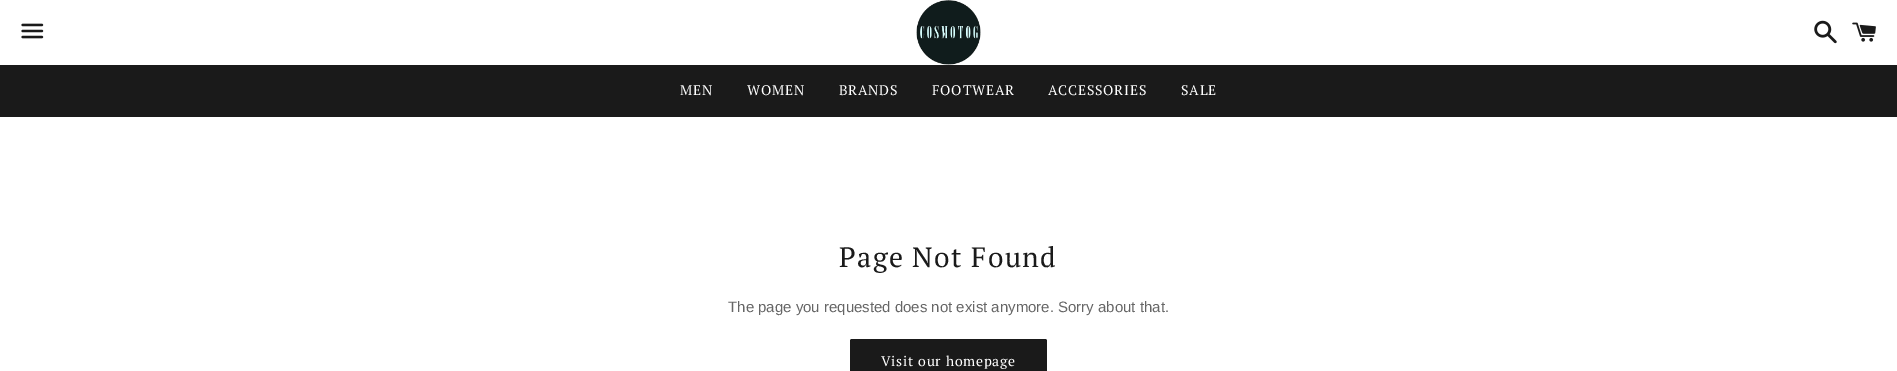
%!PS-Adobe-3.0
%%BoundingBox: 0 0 1897 371
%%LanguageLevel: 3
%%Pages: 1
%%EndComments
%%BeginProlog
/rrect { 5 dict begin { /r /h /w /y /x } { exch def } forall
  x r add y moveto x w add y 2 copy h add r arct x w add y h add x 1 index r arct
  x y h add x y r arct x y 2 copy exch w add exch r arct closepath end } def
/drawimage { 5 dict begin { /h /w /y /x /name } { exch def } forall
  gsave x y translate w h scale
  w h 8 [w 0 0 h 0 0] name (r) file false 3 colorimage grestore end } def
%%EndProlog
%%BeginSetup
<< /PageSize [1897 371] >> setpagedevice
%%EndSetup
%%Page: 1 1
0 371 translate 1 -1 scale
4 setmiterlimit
1 setgray
0 0 1897 371 rectfill
(images/1.raw) 21 23 23 16 drawimage
(images/2.raw) 916 0 65 65 drawimage
(images/3.raw) 1814 20 23 24 drawimage
(images/4.raw) 1852 22 24 20 drawimage
0.102 setgray
0 65 1897 52 rectfill
850 339 197 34 2 rrect fill
/PTSerif-Regular [14 0 0 -14 0 0] selectfont
1 setgray
680 95 moveto 0.75 0 (MEN) ashow
747 95 moveto 0.75 0 (WOMEN) ashow
839 95 moveto 0.75 0 (BRANDS) ashow
932 95 moveto 0.75 0 (FOOTWEAR) ashow
1048 95 moveto 0.75 0 (ACCESSORIES) ashow
1181 95 moveto 0.75 0 (SALE) ashow
/PTSerif-Regular [28 0 0 -28 0 0] selectfont
0.102 setgray
839 267 moveto 1.4 0 (Page Not Found) ashow
/LiberationSans-Regular [15 0 0 -15 0 0] selectfont
0.4 setgray
728 312 moveto (The page you requested does not exist anymore. Sorry about that.) show
/PTSerif-Regular [14 0 0 -14 0 0] selectfont
1 setgray
881 366 moveto 0.75 0 (Visit our homepage) ashow
showpage
%%EOF
